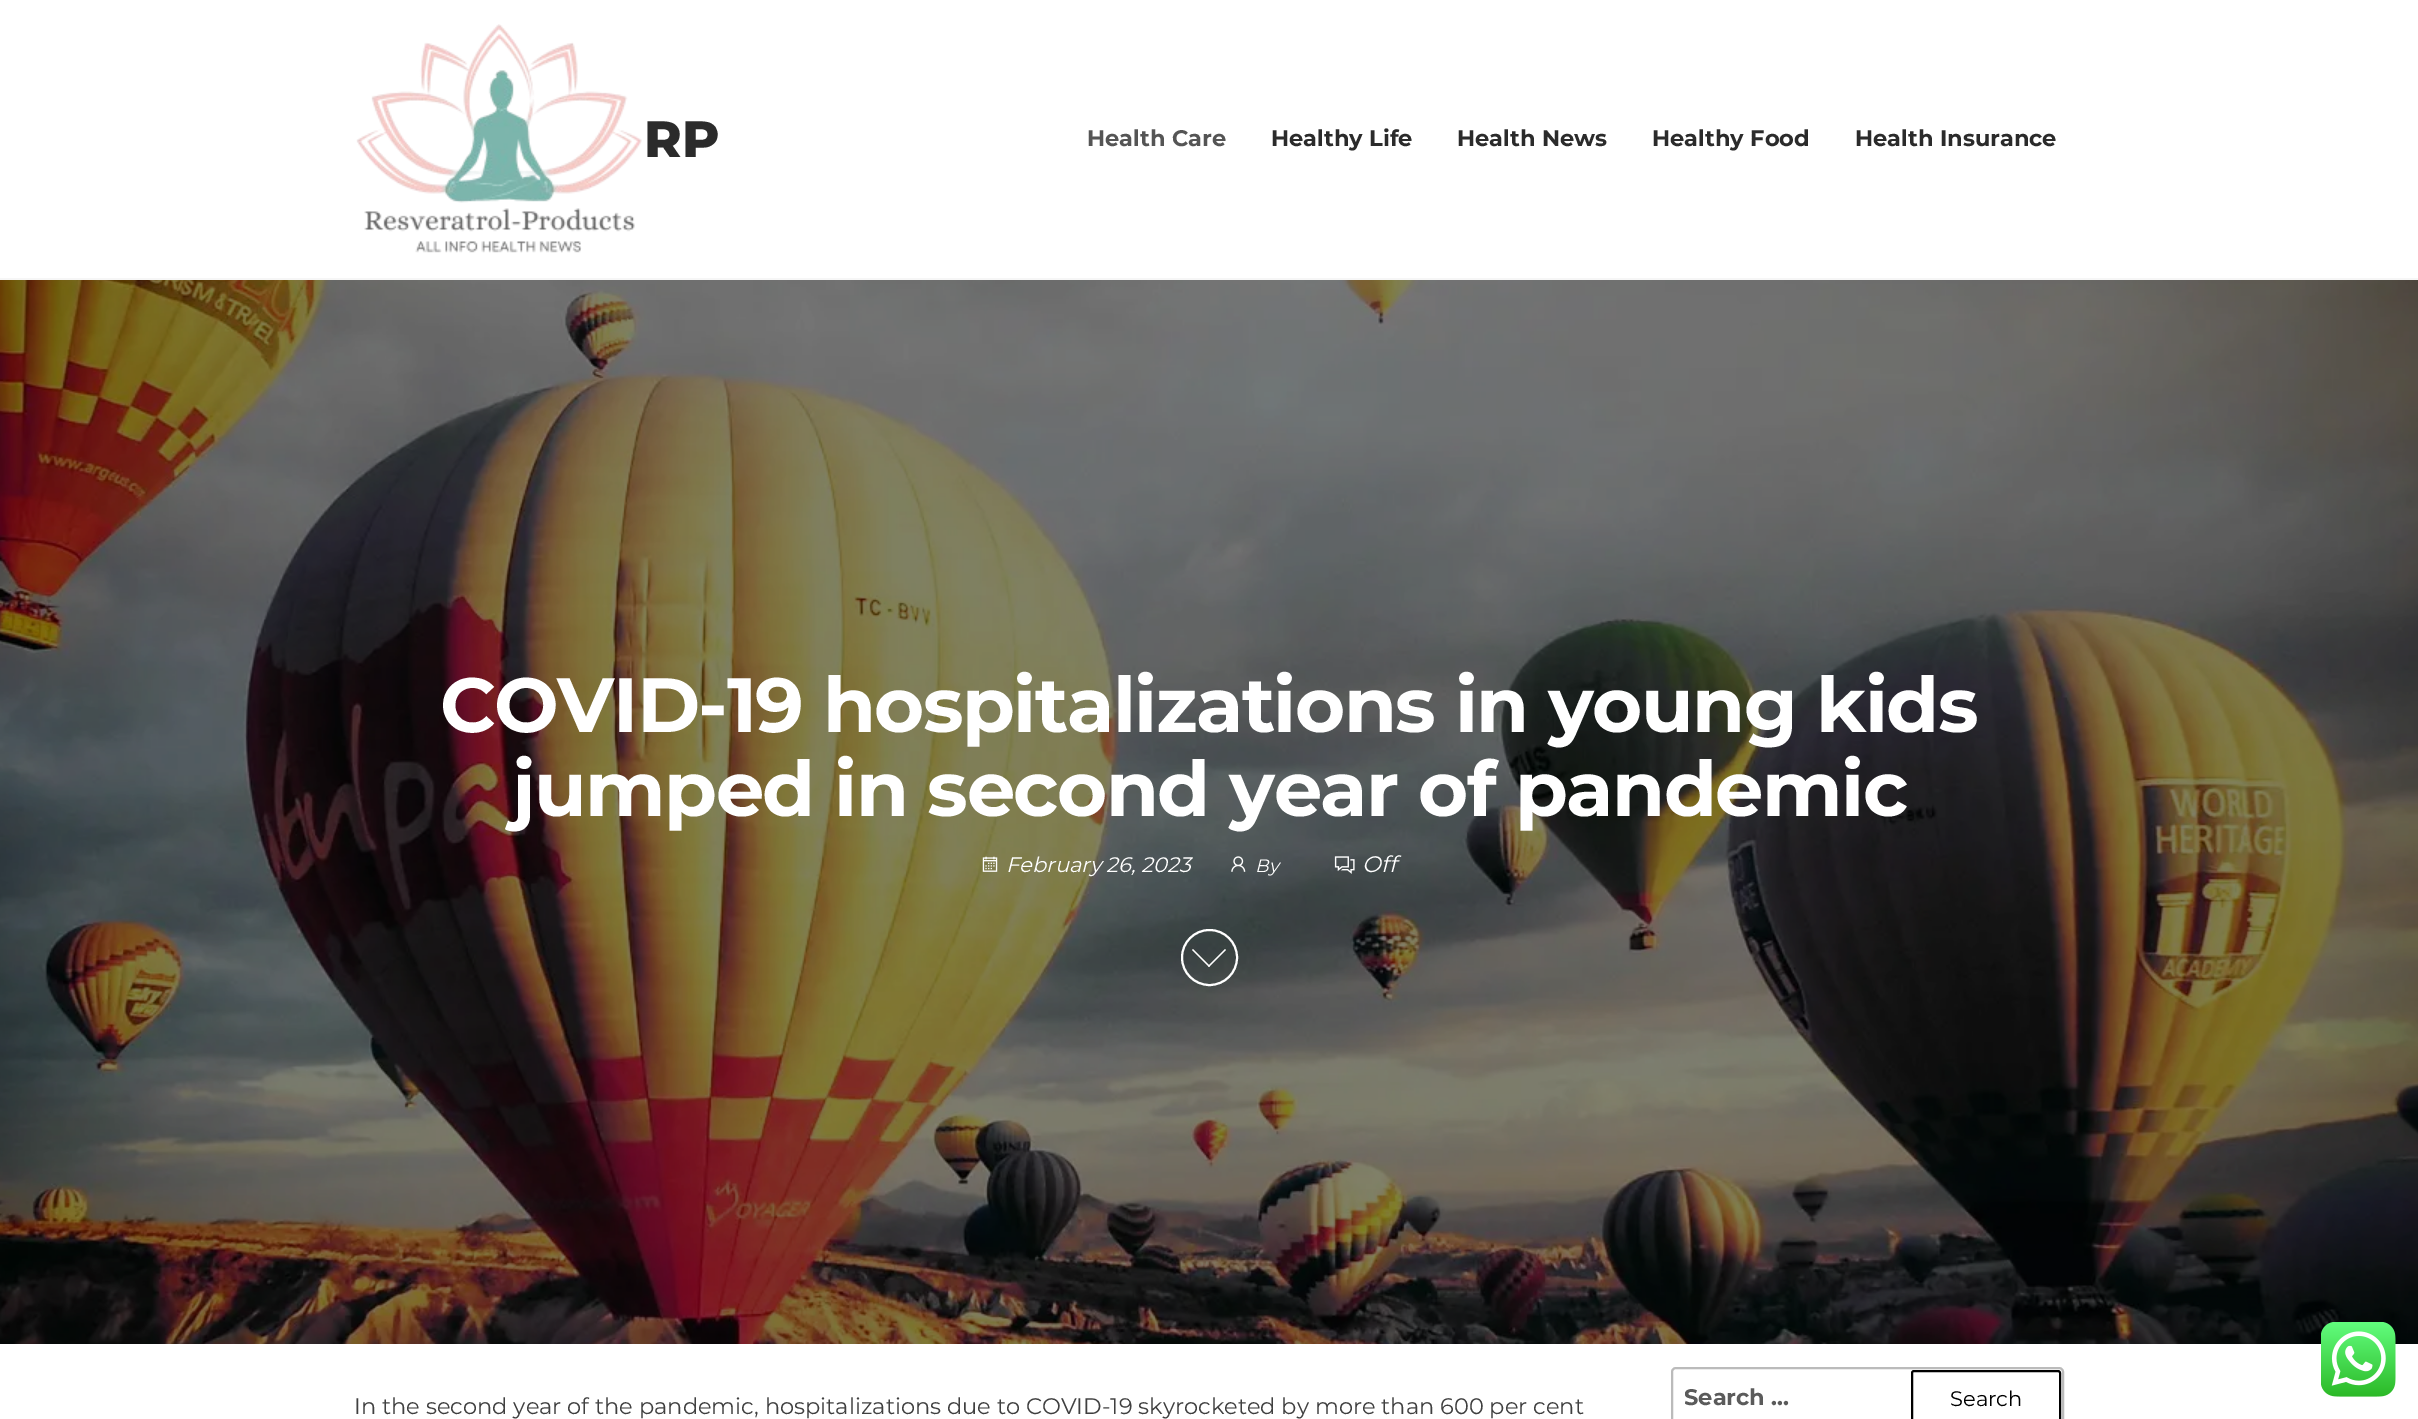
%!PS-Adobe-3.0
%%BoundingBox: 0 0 2418 1419
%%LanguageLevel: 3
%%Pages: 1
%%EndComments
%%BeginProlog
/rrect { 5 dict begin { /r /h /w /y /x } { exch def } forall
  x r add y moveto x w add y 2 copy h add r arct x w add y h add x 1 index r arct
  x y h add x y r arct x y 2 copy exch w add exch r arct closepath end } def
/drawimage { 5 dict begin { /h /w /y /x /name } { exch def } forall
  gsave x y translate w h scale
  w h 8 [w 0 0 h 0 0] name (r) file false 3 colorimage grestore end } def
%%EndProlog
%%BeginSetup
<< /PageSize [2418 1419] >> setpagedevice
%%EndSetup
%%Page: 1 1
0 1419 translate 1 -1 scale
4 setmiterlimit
1 setgray
0 0 2418 1419 rectfill
0.965 setgray
0 278 2418 2 rectfill
(images/1.raw) 356 24 286 229 drawimage
(images/2.raw) 0 280 2418 1064 drawimage
(images/3.raw) 982 856 16 16 drawimage
(images/4.raw) 1231 856 15 16 drawimage
(images/5.raw) 1334 856 21 18 drawimage
1 setgray
2 setlinewidth
newpath 1209.5 957.5 27.5 0 360 arc closepath stroke
newpath 1208 966 moveto 1225 949 lineto 1226 950 lineto 1209 967 lineto closepath fill
newpath 1192 950 moveto 1193 949 lineto 1210 966 lineto 1209 967 lineto closepath fill
0.733 setgray
1672 1368 391 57 4 rrect stroke
0 setgray
1912 1371 148 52 2 rrect stroke
(images/6.raw) 2321 1322 75 75 drawimage
/Montserrat-ExtraBold [51 0 0 -51 0 0] selectfont
0.169 setgray
644 157 moveto (RP) show
/Montserrat-Bold [22.5 0 0 -22.5 0 0] selectfont
0.333 setgray
1087 146 moveto (Health Care) show
0.169 setgray
1271 146 moveto (Healthy Life) show
1457 146 moveto (Health News) show
1652 146 moveto (Healthy Food) show
1855 146 moveto (Health Insurance) show
/Montserrat-Bold [76.75 0 0 -76.75 0 0] selectfont
1 setgray
440 732 moveto -1.55 0 (COVID-19 hospitalizations in young kids) ashow
512 816 moveto -1.55 0 (jumped in second year of pandemic) ashow
/Montserrat-Italic [21 0 0 -21 0 0] selectfont
1006 872 moveto (February 26, 2023) show
/Montserrat-Italic [18 0 0 -18 0 0] selectfont
1255 872 moveto (By) show
/Montserrat-Italic [22.5 0 0 -22.5 0 0] selectfont
1362 872 moveto (Off) show
/Montserrat-Regular [22.5 0 0 -22.5 0 0] selectfont
0.251 setgray
354 1414 moveto (In the second year of the pandemic, hospitalizations due to COVID-19 skyrocketed by more than 600 per cent) show
gsave
1685 1383 237 29 rectclip
/Montserrat-Bold [22.5 0 0 -22.5 0 0] selectfont
0.357 setgray
1684 1405 moveto (Search …) show
grestore
/Montserrat-Regular [21 0 0 -21 0 0] selectfont
0 setgray
1950 1406 moveto (Search) show
showpage
%%EOF
